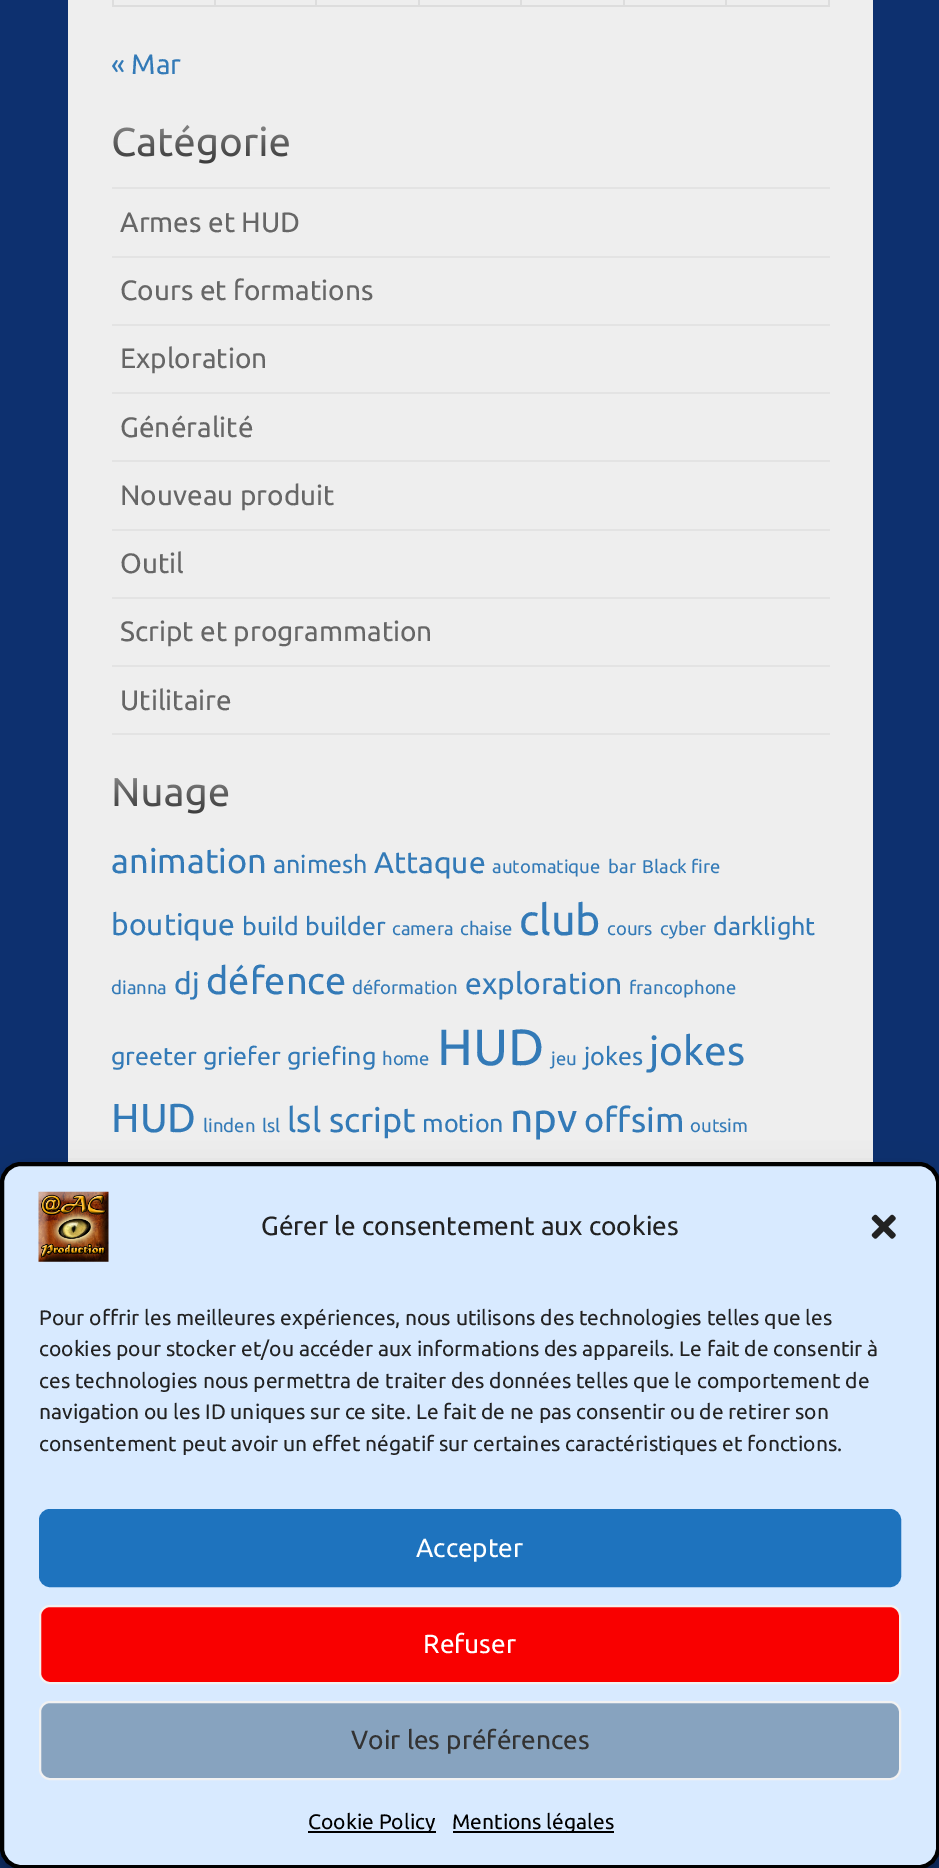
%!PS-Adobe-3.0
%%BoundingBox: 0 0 939 1868
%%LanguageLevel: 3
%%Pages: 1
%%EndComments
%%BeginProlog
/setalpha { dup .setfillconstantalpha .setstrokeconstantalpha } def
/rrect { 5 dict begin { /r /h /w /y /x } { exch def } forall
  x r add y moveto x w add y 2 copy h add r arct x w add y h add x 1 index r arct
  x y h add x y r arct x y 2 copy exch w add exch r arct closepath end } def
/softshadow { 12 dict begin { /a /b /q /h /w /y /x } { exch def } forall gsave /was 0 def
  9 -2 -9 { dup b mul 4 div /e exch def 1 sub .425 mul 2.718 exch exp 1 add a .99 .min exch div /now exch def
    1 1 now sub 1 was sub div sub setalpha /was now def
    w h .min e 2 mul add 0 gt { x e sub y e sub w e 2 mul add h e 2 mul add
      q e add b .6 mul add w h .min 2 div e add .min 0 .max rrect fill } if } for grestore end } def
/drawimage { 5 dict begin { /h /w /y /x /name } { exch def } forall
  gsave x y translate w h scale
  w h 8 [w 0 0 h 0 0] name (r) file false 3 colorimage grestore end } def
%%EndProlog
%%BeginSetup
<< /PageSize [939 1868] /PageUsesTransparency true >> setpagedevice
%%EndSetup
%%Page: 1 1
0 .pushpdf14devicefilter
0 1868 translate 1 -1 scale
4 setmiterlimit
0.051 0.188 0.435 setrgbcolor
0 0 939 1868 rectfill
0.933 setgray
68 0 805 1162 rectfill
0.867 setgray
828 0 2 7 rectfill
112 5 718 2 rectfill
112 0 2 7 rectfill
214 0 2 7 rectfill
315 0 2 7 rectfill
418 0 2 7 rectfill
520 0 2 7 rectfill
623 0 2 7 rectfill
725 0 2 7 rectfill
0.89 setgray
112 187 718 2 rectfill
112 256 718 2 rectfill
112 324 718 2 rectfill
112 392 718 2 rectfill
112 460 718 2 rectfill
112 529 718 2 rectfill
112 597 718 2 rectfill
112 665 718 2 rectfill
112 733 718 2 rectfill
0 setgray
0 1173 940 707 21 5 0.23 softshadow
0 1180 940 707 21 17.5 0.19 softshadow
0.847 0.918 1 setrgbcolor
2 1164 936 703 19 rrect gsave fill grestore
0 setgray
4 setlinewidth
stroke
(images/3.raw) 38 1191 71 71 drawimage
(images/4.raw) 871 1214 25 25 drawimage
0.118 0.451 0.745 setrgbcolor
40 1510 860 76 10 rrect gsave fill grestore
2 setlinewidth
stroke
0.976 0 0 setrgbcolor
40 1606 860 77 10 rrect gsave fill grestore
0.949 setgray
stroke
0.529 0.639 0.749 setrgbcolor
40 1702 860 77 10 rrect gsave fill grestore
0.949 setgray
stroke
0 setgray
308 1831 128 2 rectfill
453 1831 161 2 rectfill
/Ubuntu-Regular [28 0 0 -28 0 0] selectfont
0.2 0.478 0.718 setrgbcolor
111 74 moveto (« Mar) show
/Ubuntu-Regular [40.25 0 0 -40.25 0 0] selectfont
0.2 setgray
111 156 moveto (Catégorie) show
(images/1.raw) 113 124 176 40 drawimage
/Ubuntu-Regular [28 0 0 -28 0 0] selectfont
0.4 setgray
120 232 moveto (Armes et HUD) show
120 300 moveto (Cours et formations) show
120 368 moveto (Exploration) show
120 437 moveto (Généralité) show
120 505 moveto (Nouveau produit) show
120 573 moveto (Outil) show
120 641 moveto (Script et programmation) show
120 710 moveto (Utilitaire) show
/Ubuntu-Regular [40.25 0 0 -40.25 0 0] selectfont
0.2 setgray
111 806 moveto (Nuage) show
(images/2.raw) 114 778 115 36 drawimage
/Ubuntu-Regular [34.25 0 0 -34.25 0 0] selectfont
0.2 0.478 0.718 setrgbcolor
111 873 moveto (animation) show
/Ubuntu-Regular [25 0 0 -25 0 0] selectfont
273 873 moveto (animesh) show
/Ubuntu-Regular [30 0 0 -30 0 0] selectfont
374 873 moveto (Attaque) show
/Ubuntu-Regular [18.5 0 0 -18.5 0 0] selectfont
492 873 moveto (automatique) show
608 873 moveto (bar) show
642 873 moveto (Black fire) show
/Ubuntu-Regular [30 0 0 -30 0 0] selectfont
111 935 moveto (boutique) show
/Ubuntu-Regular [25 0 0 -25 0 0] selectfont
242 935 moveto (build) show
305 935 moveto (builder) show
/Ubuntu-Regular [18.5 0 0 -18.5 0 0] selectfont
392 935 moveto (camera) show
460 935 moveto (chaise) show
/Ubuntu-Regular [43 0 0 -43 0 0] selectfont
519 935 moveto (club) show
/Ubuntu-Regular [18.5 0 0 -18.5 0 0] selectfont
607 935 moveto (cours) show
660 935 moveto (cyber) show
/Ubuntu-Regular [25 0 0 -25 0 0] selectfont
713 935 moveto (darklight) show
/Ubuntu-Regular [18.5 0 0 -18.5 0 0] selectfont
111 994 moveto (dianna) show
/Ubuntu-Regular [30 0 0 -30 0 0] selectfont
174 994 moveto (dj) show
/Ubuntu-Regular [38 0 0 -38 0 0] selectfont
206 994 moveto (défence) show
/Ubuntu-Regular [18.5 0 0 -18.5 0 0] selectfont
352 994 moveto (déformation) show
/Ubuntu-Regular [30 0 0 -30 0 0] selectfont
465 994 moveto (exploration) show
/Ubuntu-Regular [18.5 0 0 -18.5 0 0] selectfont
629 994 moveto (francophone) show
/Ubuntu-Regular [25 0 0 -25 0 0] selectfont
111 1065 moveto (greeter) show
203 1065 moveto (griefer) show
287 1065 moveto (griefing) show
/Ubuntu-Regular [18.5 0 0 -18.5 0 0] selectfont
382 1065 moveto (home) show
/Ubuntu-Regular [51 0 0 -51 0 0] selectfont
437 1065 moveto (HUD) show
/Ubuntu-Regular [18.5 0 0 -18.5 0 0] selectfont
551 1065 moveto (jeu) show
/Ubuntu-Regular [25 0 0 -25 0 0] selectfont
584 1065 moveto (jokes) show
/Ubuntu-Regular [40.5 0 0 -40.5 0 0] selectfont
649 1065 moveto (jokes) show
111 1132 moveto (HUD) show
/Ubuntu-Regular [18.5 0 0 -18.5 0 0] selectfont
203 1132 moveto (linden) show
262 1132 moveto (lsl) show
/Ubuntu-Regular [34.25 0 0 -34.25 0 0] selectfont
287 1132 moveto (lsl script) show
/Ubuntu-Regular [25 0 0 -25 0 0] selectfont
422 1132 moveto (motion) show
/Ubuntu-Regular [40.5 0 0 -40.5 0 0] selectfont
510 1132 moveto (npv) show
/Ubuntu-Regular [34.25 0 0 -34.25 0 0] selectfont
584 1132 moveto (offsim) show
/Ubuntu-Regular [18.5 0 0 -18.5 0 0] selectfont
690 1132 moveto (outsim) show
/Ubuntu-Regular [26.25 0 0 -26.25 0 0] selectfont
0.133 setgray
261 1235 moveto (Gérer le consentement aux cookies) show
/Ubuntu-Regular [21 0 0 -21 0 0] selectfont
39 1325 moveto (Pour offrir les meilleures expériences, nous utilisons des technologies telles que les) show
39 1356 moveto (cookies pour stocker et/ou accéder aux informations des appareils. Le fait de consentir à) show
39 1388 moveto (ces technologies nous permettra de traiter des données telles que le comportement de) show
39 1419 moveto (navigation ou les ID uniques sur ce site. Le fait de ne pas consentir ou de retirer son) show
39 1451 moveto (consentement peut avoir un effet négatif sur certaines caractéristiques et fonctions.) show
/Ubuntu-Regular [26.25 0 0 -26.25 0 0] selectfont
1 setgray
416 1557 moveto (Accepter) show
423 1653 moveto (Refuser) show
0.2 setgray
351 1749 moveto (Voir les préférences) show
/Ubuntu-Regular [21 0 0 -21 0 0] selectfont
0 setgray
308 1829 moveto (Cookie Policy) show
452 1829 moveto (Mentions légales) show
.poppdf14devicefilter showpage
%%EOF
